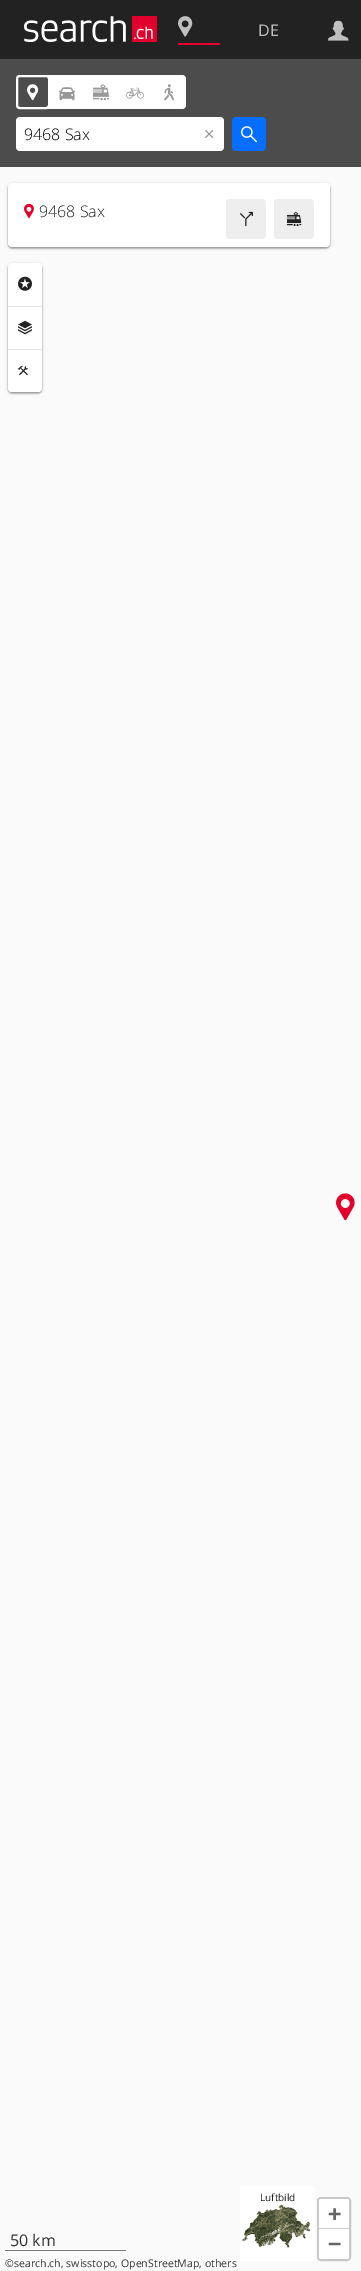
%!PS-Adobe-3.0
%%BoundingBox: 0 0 361 2271
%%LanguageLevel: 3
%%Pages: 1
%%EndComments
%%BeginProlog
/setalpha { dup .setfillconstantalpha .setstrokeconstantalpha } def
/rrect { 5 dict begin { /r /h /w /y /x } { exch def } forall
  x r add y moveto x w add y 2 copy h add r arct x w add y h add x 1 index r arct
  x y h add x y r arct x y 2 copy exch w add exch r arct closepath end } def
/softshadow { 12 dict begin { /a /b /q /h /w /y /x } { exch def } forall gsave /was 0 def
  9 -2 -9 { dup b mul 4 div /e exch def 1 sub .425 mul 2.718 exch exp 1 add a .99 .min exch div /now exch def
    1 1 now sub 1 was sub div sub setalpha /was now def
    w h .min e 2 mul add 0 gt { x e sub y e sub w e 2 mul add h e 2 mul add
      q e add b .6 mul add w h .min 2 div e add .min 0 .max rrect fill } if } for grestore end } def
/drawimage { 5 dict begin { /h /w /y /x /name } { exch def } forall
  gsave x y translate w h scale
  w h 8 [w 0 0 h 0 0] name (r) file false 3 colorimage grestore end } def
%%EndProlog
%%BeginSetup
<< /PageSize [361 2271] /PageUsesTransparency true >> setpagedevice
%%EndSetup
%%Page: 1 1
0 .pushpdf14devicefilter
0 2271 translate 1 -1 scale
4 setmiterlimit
0.98 setgray
0 0 361 2271 rectfill
0.133 setgray
0 0 361 59 rectfill
(images/1.raw) 24 16 133 26 drawimage
0.894 0 0.173 setrgbcolor
178 43 42 2 rectfill
(images/2.raw) 178 16 15 21 drawimage
(images/3.raw) 328 20 21 21 drawimage
0.298 setgray
0 59 361 108 rectfill
1 setgray
16 75 170 34 4 rrect fill
0.298 setgray
17 76 32 32 3 rrect gsave fill grestore
1 setgray
2 setlinewidth
stroke
(images/4.raw) 27 84 12 17 drawimage
(images/5.raw) 59 87 16 14 drawimage
(images/6.raw) 93 84 17 17 drawimage
(images/7.raw) 126 87 18 12 drawimage
(images/8.raw) 164 84 10 17 drawimage
16 117 208 34 4 rrect fill
(images/9.raw) 205 130 9 8 drawimage
0.02 0.427 1 setrgbcolor
232 117 34 34 4 rrect fill
(images/10.raw) 241 126 16 17 drawimage
gsave
newpath 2 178 moveto 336 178 lineto 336 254 lineto 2 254 lineto closepath 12 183 moveto 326 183 lineto 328 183 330 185 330 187 curveto 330 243 lineto 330 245 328 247 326 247 curveto 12 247 lineto 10 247 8 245 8 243 curveto 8 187 lineto 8 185 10 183 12 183 curveto closepath eoclip newpath
0 setgray
8 184 322 64 4 1.5 0.2 softshadow
grestore
0 setgray
8 185 322 64 4 0.5 0.12 softshadow
8 184 322 64 4 0.5 0.14 softshadow
1 setgray
8 183 322 64 4 rrect fill
(images/11.raw) 24 203 10 16 drawimage
0.933 setgray
226 199 40 40 4 rrect fill
(images/12.raw) 240 211 13 16 drawimage
274 199 40 40 4 rrect fill
(images/13.raw) 287 211 15 16 drawimage
gsave
newpath 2 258 moveto 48 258 lineto 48 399 lineto 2 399 lineto closepath 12 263 moveto 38 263 lineto 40 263 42 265 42 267 curveto 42 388 lineto 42 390 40 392 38 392 curveto 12 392 lineto 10 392 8 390 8 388 curveto 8 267 lineto 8 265 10 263 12 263 curveto closepath eoclip newpath
0 setgray
8 264 34 129 4 1.5 0.2 softshadow
grestore
0 setgray
8 265 34 129 4 0.5 0.12 softshadow
8 264 34 129 4 0.5 0.14 softshadow
1 setgray
8 263 34 129 4 rrect fill
0.902 setgray
8 306 34 1 rectfill
(images/14.raw) 18 276 14 15 drawimage
8 349 34 1 rectfill
(images/15.raw) 18 320 14 15 drawimage
gsave
8 263 34 129 3 rrect clip newpath
1 setgray
newpath 8 350 moveto 42 350 lineto 42 388 lineto 42 390 40 392 38 392 curveto 12 392 lineto 10 392 8 390 8 388 curveto closepath fill
grestore
(images/16.raw) 18 365 10 11 drawimage
1 setgray
240 2186 75 75 3 rrect fill
(images/17.raw) 242 2204 71 46 drawimage
(images/18.raw) 336 1193 19 28 drawimage
0.784 setgray
318 2198 32 62 3 rrect stroke
1 setgray
newpath 321 2199 moveto 347 2199 lineto 348 2199 349 2200 349 2201 curveto 349 2229 lineto 319 2229 lineto 319 2201 lineto 319 2200 320 2199 321 2199 curveto closepath fill
0.8 setgray
319 2228 30 1 rectfill
1 setgray
newpath 319 2229 moveto 349 2229 lineto 349 2257 lineto 349 2258 348 2259 347 2259 curveto 321 2259 lineto 320 2259 319 2258 319 2257 curveto closepath fill
0.992 setgray
5 2251 121 1 rectfill
5 2249 121 1 rectfill
0.467 setgray
5 2250 121 1 rectfill
/OpenSans-Regular [16 0 0 -16 0 0] selectfont
0.749 setgray
258 36 moveto (DE) show
/OpenSans-Light [16 0 0 -16 0 0] selectfont
0 setgray
24 140 moveto (9468 Sax) show
0.133 setgray
39 217 moveto (9468 Sax) show
/OpenSans-Regular [10 0 0 -10 0 0] selectfont
260 2201 moveto (Luftbild) show
/DejaVuSansMono-Bold [22 0 0 -22 0 0] selectfont
0.4 setgray
328 2221 moveto (+) show
328 2251 moveto (−) show
/OpenSans-Regular [16 0 0 -16 0 0] selectfont
0.2 setgray
10 2246 moveto (50 km) show
/OpenSans-Regular [10.6 0 0 -10.6 0 0] selectfont
5 2267 moveto (©search.ch, swisstopo, OpenStreetMap, others) show
.poppdf14devicefilter showpage
%%EOF
